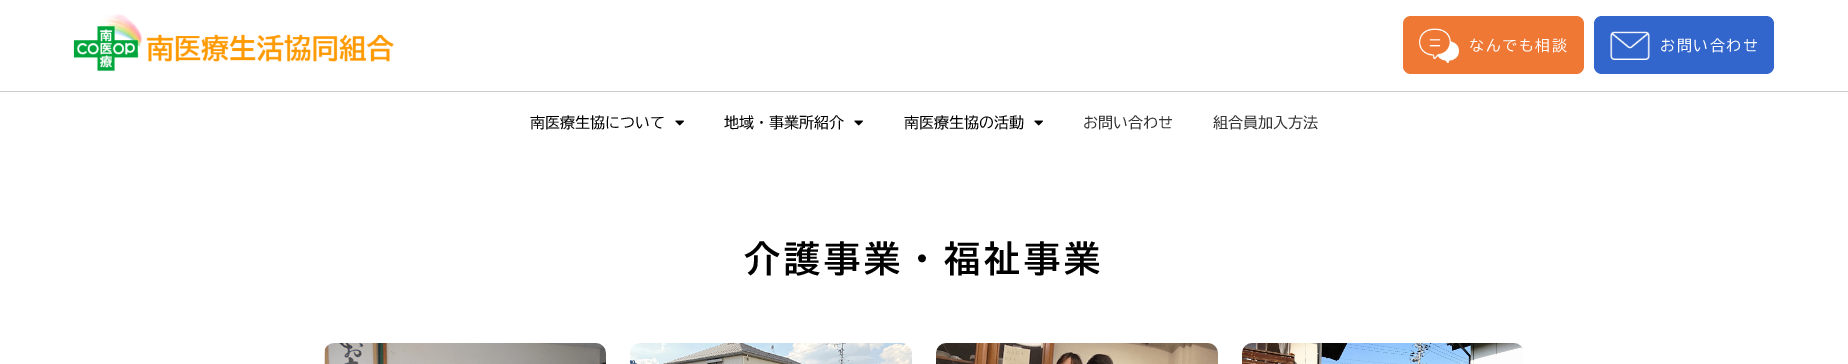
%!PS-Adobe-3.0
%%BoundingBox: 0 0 1848 364
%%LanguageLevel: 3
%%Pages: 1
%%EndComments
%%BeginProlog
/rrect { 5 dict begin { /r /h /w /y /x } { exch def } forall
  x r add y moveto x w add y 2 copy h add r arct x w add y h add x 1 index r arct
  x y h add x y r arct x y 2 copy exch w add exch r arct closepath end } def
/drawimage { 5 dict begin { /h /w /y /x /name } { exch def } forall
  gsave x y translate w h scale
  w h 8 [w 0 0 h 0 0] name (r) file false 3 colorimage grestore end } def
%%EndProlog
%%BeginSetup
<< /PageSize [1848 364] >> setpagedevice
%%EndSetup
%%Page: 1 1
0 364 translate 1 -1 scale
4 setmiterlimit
1 setgray
0 0 1848 364 rectfill
(images/1.raw) 73 14 321 57 drawimage
0.933 0.471 0.204 setrgbcolor
1403 16 181 58 8 rrect fill
(images/2.raw) 1419 28 40 35 drawimage
0.2 0.4 0.8 setrgbcolor
1594 16 180 58 8 rrect fill
(images/3.raw) 1610 31 40 29 drawimage
0.8 setgray
0 91 1848 1 rectfill
(images/4.raw) 675 120 9 6 drawimage
(images/4.raw) 854 120 9 6 drawimage
(images/4.raw) 1034 120 9 6 drawimage
(images/5.raw) 324 343 282 21 drawimage
(images/6.raw) 630 343 282 21 drawimage
(images/7.raw) 936 343 282 21 drawimage
(images/8.raw) 1242 343 281 21 drawimage
/BIZUDGothic-Regular [15 0 0 -15 0 0] selectfont
1 setgray
1469 51 moveto 1.5 0 (なんでも相談) ashow
1660 51 moveto 1.5 0 (お問い合わせ) ashow
0 setgray
530 128 moveto (南医療生協について) show
724 128 moveto (地域・事業所紹介) show
904 128 moveto (南医療生協の活動) show
0.2 setgray
1083 128 moveto (お問い合わせ) show
1213 128 moveto (組合員加入方法) show
/BIZUDGothic-Bold [36 0 0 -36 0 0] selectfont
0 setgray
744 272 moveto 4 0 (介護事業・福祉事業) ashow
showpage
%%EOF
